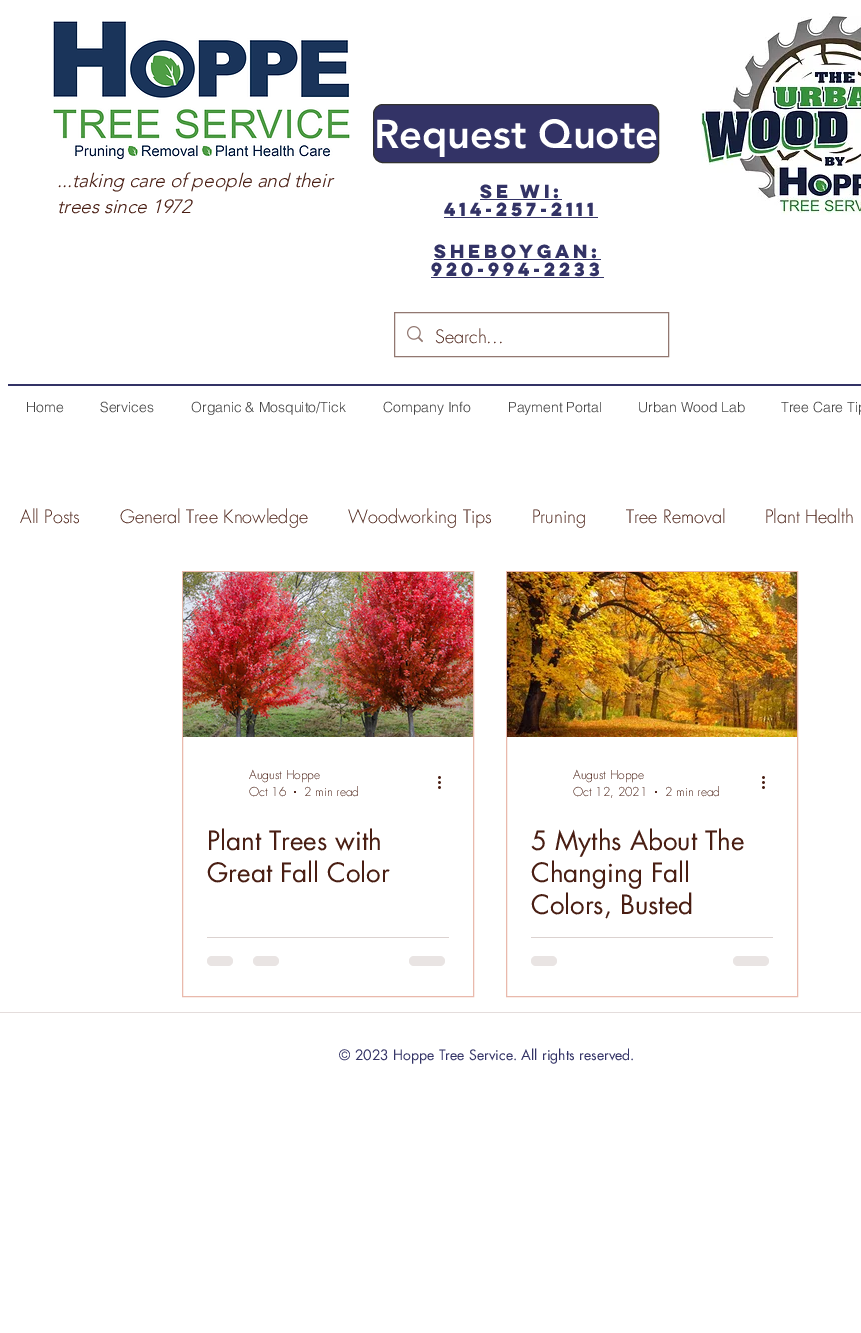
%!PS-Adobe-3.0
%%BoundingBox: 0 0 861 1333
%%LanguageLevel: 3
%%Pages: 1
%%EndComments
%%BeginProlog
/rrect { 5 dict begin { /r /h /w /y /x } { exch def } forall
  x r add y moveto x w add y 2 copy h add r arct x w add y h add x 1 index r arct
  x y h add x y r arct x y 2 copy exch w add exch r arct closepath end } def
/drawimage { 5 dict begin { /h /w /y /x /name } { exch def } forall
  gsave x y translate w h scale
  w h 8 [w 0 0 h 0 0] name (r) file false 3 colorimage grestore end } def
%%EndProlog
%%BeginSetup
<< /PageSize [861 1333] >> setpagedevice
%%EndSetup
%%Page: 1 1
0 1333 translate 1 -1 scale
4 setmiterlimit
1 setgray
0 0 861 1333 rectfill
(images/1.raw) 53 21 297 139 drawimage
0.2 0.2 0.4 setrgbcolor
373.5 104.5 285 58 9.5 rrect gsave fill grestore
0.196 setgray
stroke
(images/2.raw) 700 13 161 202 drawimage
0.2 0.2 0.4 setrgbcolor
480 199 82 1 rectfill
444 217 154 1 rectfill
434 259 167 1 rectfill
431 277 173 1 rectfill
0.573 0.471 0.443 setrgbcolor
394.5 312.5 274 44 rectstroke
(images/3.raw) 407 326 16 17 drawimage
0.2 0.2 0.4 setrgbcolor
8 384 853 2 rectfill
0.914 0.725 0.675 setrgbcolor
182.5 571.5 291 425 rectstroke
(images/4.raw) 183 572 290 165 drawimage
0.286 0.118 0.075 setrgbcolor
newpath 295 792 1 0 360 arc closepath fill
(images/5.raw) 438 776 3 13 drawimage
0.859 0.824 0.816 setrgbcolor
207 937 242 1 rectfill
0.914 0.894 0.89 setrgbcolor
207 956 26 10 5 rrect fill
253 956 26 10 5 rrect fill
409 956 36 10 5 rrect fill
0.914 0.725 0.675 setrgbcolor
506.5 571.5 291 425 rectstroke
(images/6.raw) 507 572 290 165 drawimage
0.286 0.118 0.075 setrgbcolor
newpath 656 792 1 0 360 arc closepath fill
(images/5.raw) 762 776 3 13 drawimage
0.859 0.824 0.816 setrgbcolor
531 937 242 1 rectfill
0.914 0.894 0.89 setrgbcolor
531 956 26 10 5 rrect fill
733 956 36 10 5 rrect fill
0.894 0.867 0.863 setrgbcolor
0 1012 861 1 rectfill
/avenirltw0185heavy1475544-Black [40 0 0 -40 0 0] selectfont
1 setgray
374 148 moveto (Request Quote) show
/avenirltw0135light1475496-LightItalic [19 0 0 -19 0 0] selectfont
0.286 0.118 0.075 setrgbcolor
57 187 moveto (...taking care of people and their) show
57 213 moveto (trees since 1972) show
/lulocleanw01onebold-Bold [17 0 0 -17 0 0] selectfont
0.2 0.2 0.4 setrgbcolor
480 198 moveto (SE WI:) show
444 216 moveto (414-257-2111) show
434 258 moveto (sheboygan:) show
431 276 moveto (920-994-2233) show
/futura-Light [18 0 0 -18 0 0] selectfont
0.286 0.118 0.075 setrgbcolor
435 343 moveto (Search...) show
/helvetica-Light [14 0 0 -14 0 0] selectfont
0.267 setgray
26 412 moveto (Home) show
100 412 moveto (Services) show
191 412 moveto (Organic & Mosquito/Tick) show
383 412 moveto (Company Info) show
508 412 moveto (Payment Portal) show
638 412 moveto (Urban Wood Lab) show
781 412 moveto (Tree Care Tip) show
/futura-Light [18 0 0 -18 0 0] selectfont
0.286 0.118 0.075 setrgbcolor
20 523 moveto (All Posts) show
120 523 moveto (General Tree Knowledge) show
348 523 moveto (Woodworking Tips) show
532 523 moveto (Pruning) show
626 523 moveto (Tree Removal) show
765 523 moveto (Plant Health) show
/futura-Light [12 0 0 -12 0 0] selectfont
249 779 moveto (August Hoppe) show
249 796 moveto (Oct 16) show
304 796 moveto (2 min read) show
/futura-Regular [26 0 0 -26 0 0] selectfont
207 850 moveto (Plant Trees with) show
207 882 moveto (Great Fall Color) show
/futura-Light [12 0 0 -12 0 0] selectfont
573 779 moveto (August Hoppe) show
573 796 moveto (Oct 12, 2021) show
665 796 moveto (2 min read) show
/futura-Regular [26 0 0 -26 0 0] selectfont
531 850 moveto (5 Myths About The) show
531 882 moveto (Changing Fall) show
531 914 moveto (Colors, Busted) show
/futura-Regular [14 0 0 -14 0 0] selectfont
0.2 0.2 0.4 setrgbcolor
339 1060 moveto (© 2023 Hoppe Tree Service. All rights reserved.) show
showpage
%%EOF
